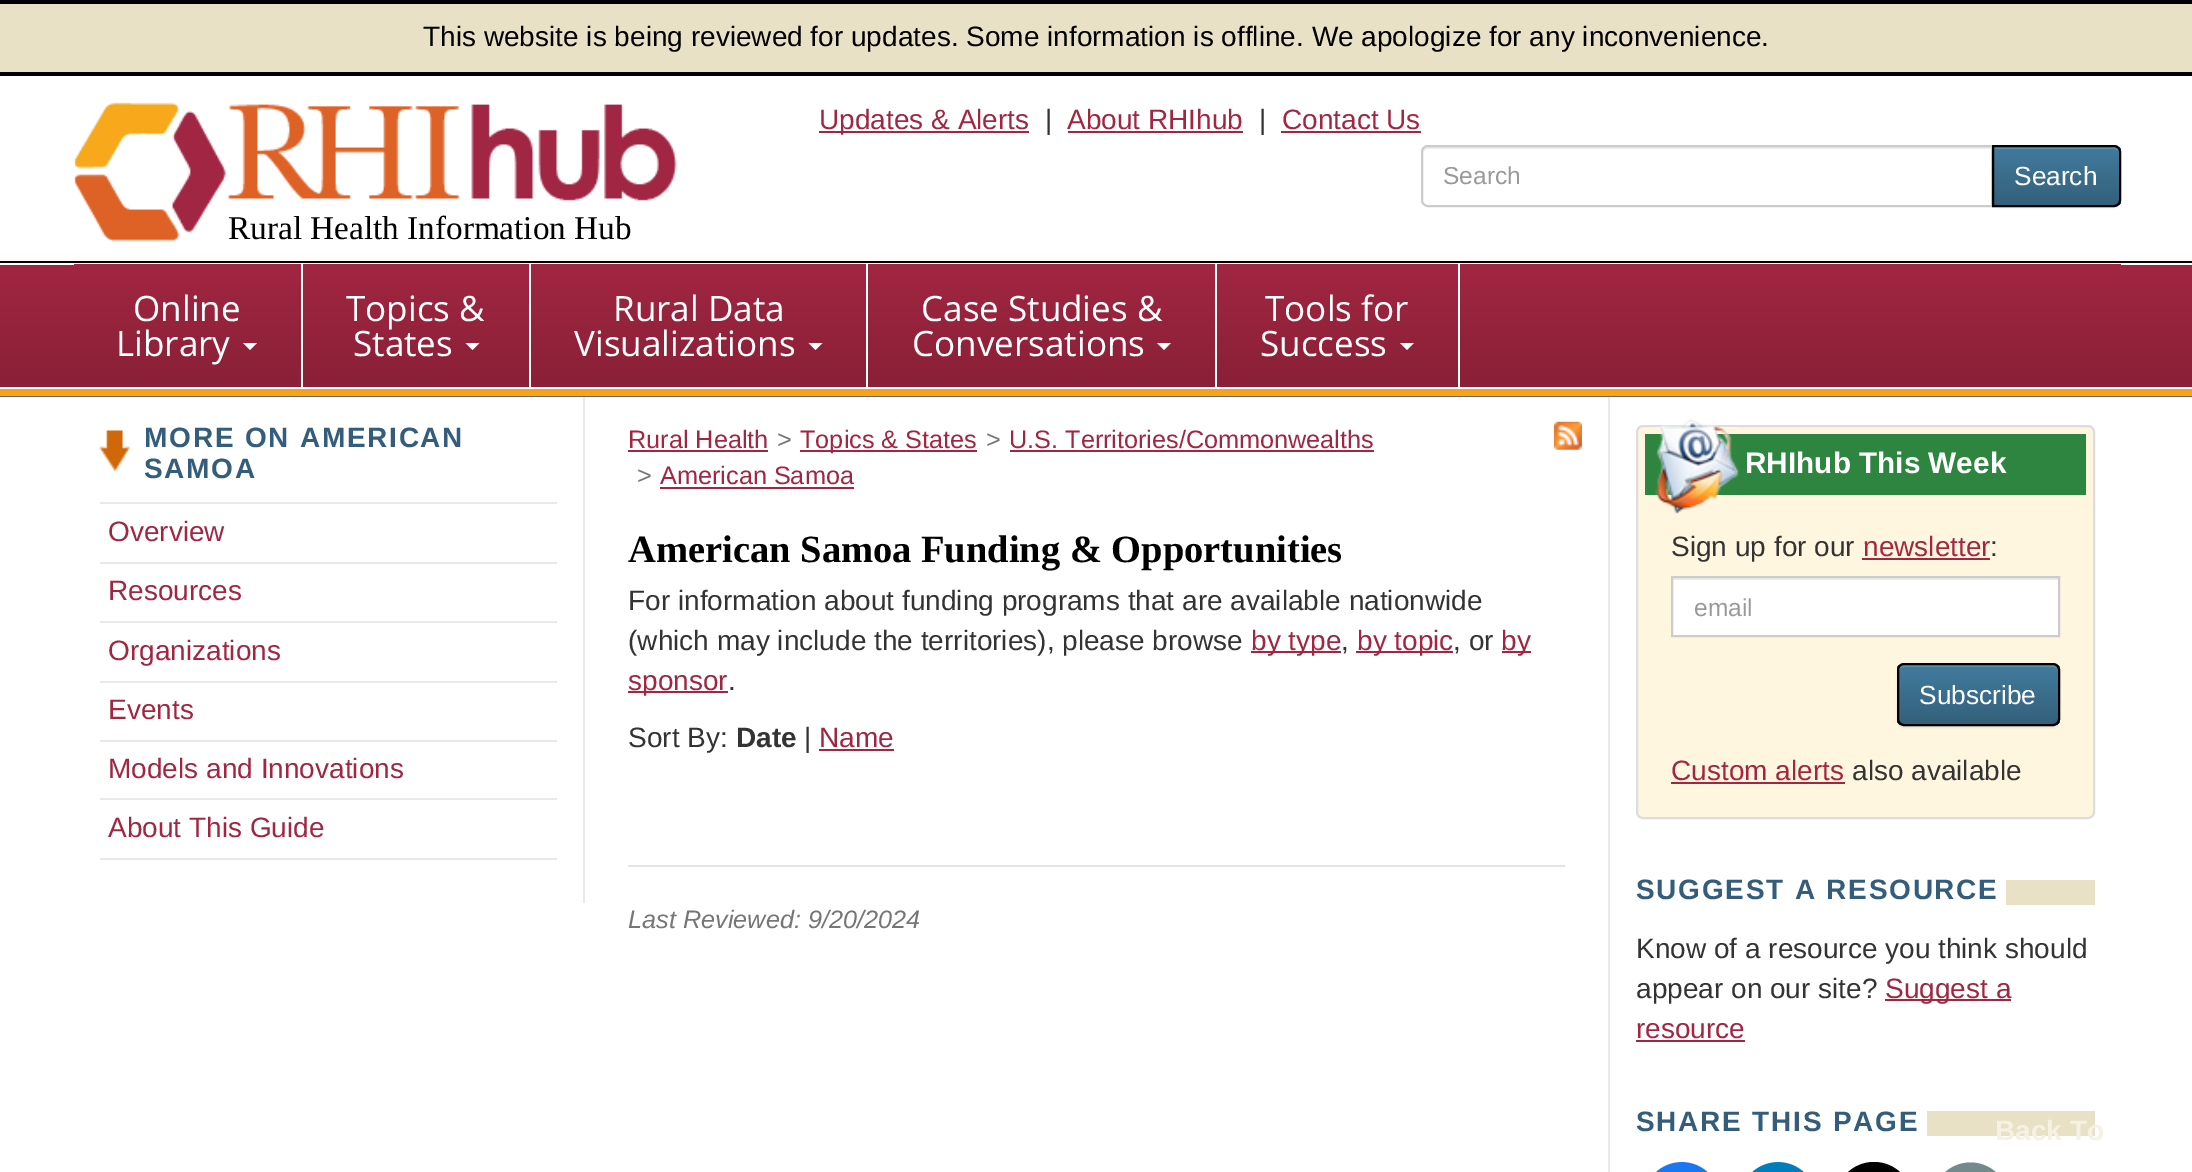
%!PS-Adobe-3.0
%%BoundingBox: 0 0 2192 1172
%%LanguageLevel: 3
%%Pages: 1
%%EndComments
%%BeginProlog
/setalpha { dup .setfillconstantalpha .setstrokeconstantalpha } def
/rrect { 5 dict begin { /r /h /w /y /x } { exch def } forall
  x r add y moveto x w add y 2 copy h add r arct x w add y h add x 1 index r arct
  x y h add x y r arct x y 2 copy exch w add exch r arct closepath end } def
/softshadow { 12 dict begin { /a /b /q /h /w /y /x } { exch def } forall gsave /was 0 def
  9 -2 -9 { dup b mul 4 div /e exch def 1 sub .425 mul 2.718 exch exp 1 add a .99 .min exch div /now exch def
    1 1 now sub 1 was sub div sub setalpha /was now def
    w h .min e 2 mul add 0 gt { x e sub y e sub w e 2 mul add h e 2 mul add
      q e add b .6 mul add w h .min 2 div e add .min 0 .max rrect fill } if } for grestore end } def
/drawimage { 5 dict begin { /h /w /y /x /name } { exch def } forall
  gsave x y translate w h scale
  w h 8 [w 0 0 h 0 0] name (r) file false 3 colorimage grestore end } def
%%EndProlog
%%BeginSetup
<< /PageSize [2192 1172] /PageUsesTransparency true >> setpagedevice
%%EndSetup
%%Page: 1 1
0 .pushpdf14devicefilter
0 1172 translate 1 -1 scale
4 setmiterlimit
1 setgray
0 0 2192 1172 rectfill
0 setgray
0 261 2192 2 rectfill
0.914 0.882 0.773 setrgbcolor
0 4 2192 68 rectfill
0 setgray
0 0 2192 4 rectfill
0 72 2192 4 rectfill
0.631 0.149 0.255 setrgbcolor
819 131 210 2 rectfill
1068 131 175 2 rectfill
1281 131 140 2 rectfill
0.925 setgray
newpath 1428 149 moveto 1992 149 lineto 1992 147 lineto 1428 147 lineto 1424 147 1423 151 1423 154 curveto 1423 151 1425 149 1428 149 curveto closepath fill
0.8 setgray
2 setlinewidth
newpath 1428 146 moveto 1992 146 lineto 1992 206 lineto 1428 206 lineto 1424.5 206 1422 203.5 1422 200 curveto 1422 152 lineto 1422 148.5 1424.5 146 1428 146 curveto closepath stroke
0 setgray
1992 147 129 61 7 1 0.07 softshadow
gsave
newpath 1992 145 moveto 2114 145 lineto 2118 145 2121 148 2121 152 curveto 2121 200 lineto 2121 204 2118 207 2114 207 curveto 1992 207 lineto closepath clip newpath
gsave newpath 1994 147 moveto 2121 147 lineto 2121 205 lineto 1994 205 lineto closepath clip newpath
<< /ShadingType 2 /ColorSpace /DeviceRGB /Coords [2056 147 2056 205] /Extend [true true] /Function << /FunctionType 2 /Domain [0 1] /C0 [0.259 0.482 0.62] /C1 [0.2 0.376 0.478] /N 1 >> >> shfill grestore
grestore
0.15 setalpha
1 setgray
newpath 1993 149 moveto 2114 149 lineto 2117 149 2119 151 2119 154 curveto 2119 152 lineto 2119 149 2117 147 2114 147 curveto 1993 147 lineto closepath fill
1 setalpha
0 setgray
newpath 1993 146 moveto 2114 146 lineto 2117.5 146 2120 148.5 2120 152 curveto 2120 200 lineto 2120 203.5 2117.5 206 2114 206 curveto 1993 206 lineto closepath stroke
(images/1.raw) 74 102 603 140 drawimage
0.914 setgray
583 396 2 507 rectfill
1608 396 2 776 rectfill
0.4 setgray
newpath 0 396 moveto 0 397 lineto 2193 397 lineto 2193 264 lineto 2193 396 lineto closepath fill
0.969 0.659 0.106 setrgbcolor
0 389 2192 7 rectfill
0.588 0.02 0.114 setrgbcolor
0 264 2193 126 0 4.5 0.07 softshadow
gsave newpath 0 265 moveto 2192 265 lineto 2192 387 lineto 0 387 lineto closepath clip newpath
<< /ShadingType 2 /ColorSpace /DeviceRGB /Coords [1096 264 1096 387] /Extend [true true] /Function << /FunctionType 2 /Domain [0 1] /C0 [0.631 0.149 0.255] /C1 [0.537 0.125 0.216] /N 1 >> >> shfill grestore
1 setgray
0 263 2192 2 rectfill
0 387 2192 2 rectfill
gsave newpath 74 264 moveto 2121 264 lineto 2121 265 lineto 74 265 lineto closepath clip newpath
<< /ShadingType 2 /ColorSpace /DeviceRGB /Coords [1097 264 1097 387] /Extend [true true] /Function << /FunctionType 2 /Domain [0 1] /C0 [0.631 0.149 0.255] /C1 [0.537 0.125 0.216] /N 1 >> >> shfill grestore
301 264 2 123 rectfill
newpath 243 343 moveto 257 343 lineto 250 350 lineto closepath fill
529 264 2 123 rectfill
newpath 465.5 343 moveto 479.5 343 lineto 472.5 350 lineto closepath fill
866 264 2 123 rectfill
newpath 808.5 343 moveto 822.5 343 lineto 815.5 350 lineto closepath fill
1215 264 2 123 rectfill
newpath 1157 343 moveto 1171 343 lineto 1164 350 lineto closepath fill
1458 264 2 123 rectfill
newpath 1400 343 moveto 1414 343 lineto 1407 350 lineto closepath fill
(images/2.raw) 99 430 31 42 drawimage
0.914 setgray
100 502 457 2 rectfill
100 562 457 2 rectfill
100 621 457 2 rectfill
100 681 457 2 rectfill
100 740 457 2 rectfill
100 798 457 2 rectfill
100 858 457 2 rectfill
0.631 0.149 0.255 setrgbcolor
628 450 140 2 rectfill
800 450 177 2 rectfill
1010 450 364 2 rectfill
660 487 194 2 rectfill
(images/3.raw) 1554 421 28 29 drawimage
1251 651 90 2 rectfill
1356 651 97 2 rectfill
1502 651 29 2 rectfill
628 691 100 2 rectfill
819 749 75 2 rectfill
0.894 setgray
628 865 937 2 rectfill
0.996 0.965 0.875 setrgbcolor
1637 426 457 392 6 rrect gsave fill grestore
0.867 setgray
stroke
0.18 0.522 0.251 setrgbcolor
1645 434 441 61 rectfill
(images/4.raw) 1655 419 84 95 drawimage
0.631 0.149 0.255 setrgbcolor
1862 558 128 2 rectfill
1 setgray
1673 580 385 55 rectfill
0.925 setgray
1673 578 385 2 rectfill
0.8 setgray
1672 577 387 59 rectstroke
0 setgray
1897 665 163 63 7 1 0.07 softshadow
gsave
1897 663 163 63 7 rrect clip newpath
gsave newpath 1897 665 moveto 2060 665 lineto 2060 725 lineto 1897 725 lineto closepath clip newpath
<< /ShadingType 2 /ColorSpace /DeviceRGB /Coords [1978 665 1978 725] /Extend [true true] /Function << /FunctionType 2 /Domain [0 1] /C0 [0.259 0.482 0.62] /C1 [0.2 0.376 0.478] /N 1 >> >> shfill grestore
grestore
0.15 setalpha
1 setgray
newpath 1904 667 moveto 2053 667 lineto 2056 667 2058 669 2058 672 curveto 2058 670 lineto 2058 667 2056 665 2053 665 curveto 1904 665 lineto 1901 665 1899 667 1899 670 curveto 1899 672 lineto 1899 669 1901 667 1904 667 curveto closepath fill
1 setalpha
0 setgray
1898 664 161 61 6 rrect stroke
0.631 0.149 0.255 setrgbcolor
1671 782 174 2 rectfill
0.914 0.882 0.773 setrgbcolor
2006 880 89 25 rectfill
0.631 0.149 0.255 setrgbcolor
1885 999 126 2 rectfill
1636 1040 109 2 rectfill
0.914 0.882 0.773 setrgbcolor
1927 1111 168 25 rectfill
(images/5.raw) 1656 1162 52 10 drawimage
(images/6.raw) 1752 1162 52 10 drawimage
0 setgray
newpath 1874 1200.5 38.5 0 360 arc closepath fill
0.451 0.541 0.553 setrgbcolor
newpath 1970.5 1200.5 38 0 360 arc closepath fill
/LiberationSans-Regular [28 0 0 -28 0 0] selectfont
0 setgray
423 46 moveto (This website is being reviewed for updates. Some information is offline. We apologize for any inconvenience.) show
0.631 0.149 0.255 setrgbcolor
819 129 moveto (Updates & Alerts) show
0.2 setgray
1045 129 moveto (|) show
0.631 0.149 0.255 setrgbcolor
1067 129 moveto (About RHIhub) show
0.2 setgray
1259 129 moveto (|) show
0.631 0.149 0.255 setrgbcolor
1282 129 moveto (Contact Us) show
/LiberationSans-Regular [24.5 0 0 -24.5 0 0] selectfont
0.6 setgray
1443 184 moveto (Search) show
/LiberationSans-Regular [26.25 0 0 -26.25 0 0] selectfont
1 setgray
2014 185 moveto (Search) show
/LiberationSerif-Regular [33.25 0 0 -33.25 0 0] selectfont
0 setgray
228 239 moveto (Rural Health Information Hub) show
/OpenSans-Regular [35 0 0 -35 0 0] selectfont
1 setgray
133 321 moveto (Online) show
116 356 moveto (Library) show
346 321 moveto (Topics &) show
353 356 moveto (States) show
613 321 moveto (Rural Data) show
574 356 moveto (Visualizations) show
921 321 moveto (Case Studies &) show
912 356 moveto (Conversations) show
1265 321 moveto (Tools for) show
1260 356 moveto (Success) show
/LiberationSans-Bold [28 0 0 -28 0 0] selectfont
0.2 0.365 0.478 setrgbcolor
144 447 moveto 1.75 0 (MORE ON AMERICAN) ashow
144 478 moveto 1.75 0 (SAMOA) ashow
/LiberationSans-Regular [28 0 0 -28 0 0] selectfont
0.631 0.149 0.255 setrgbcolor
108 541 moveto (Overview) show
108 600 moveto (Resources) show
108 660 moveto (Organizations) show
108 719 moveto (Events) show
108 778 moveto (Models and Innovations) show
108 837 moveto (About This Guide) show
/LiberationSans-Regular [25.25 0 0 -25.25 0 0] selectfont
628 448 moveto (Rural Health) show
0.463 setgray
777 448 moveto (>) show
0.631 0.149 0.255 setrgbcolor
800 448 moveto (Topics & States) show
0.463 setgray
986 448 moveto (>) show
0.631 0.149 0.255 setrgbcolor
1009 448 moveto (U.S. Territories/Commonwealths) show
0.463 setgray
637 484 moveto (>) show
0.631 0.149 0.255 setrgbcolor
660 484 moveto (American Samoa) show
/LiberationSerif-Bold [38.5 0 0 -38.5 0 0] selectfont
0 setgray
628 562 moveto (American Samoa Funding & Opportunities) show
/LiberationSans-Regular [28 0 0 -28 0 0] selectfont
0.2 setgray
628 610 moveto (For information about funding programs that are available nationwide) show
628 650 moveto (\(which may include the territories\), please browse) show
0.631 0.149 0.255 setrgbcolor
1251 650 moveto (by type) show
0.2 setgray
1341 650 moveto (,) show
0.631 0.149 0.255 setrgbcolor
1357 650 moveto (by topic) show
0.2 setgray
1453 650 moveto (, or) show
0.631 0.149 0.255 setrgbcolor
1501 650 moveto (by) show
628 690 moveto (sponsor) show
0.2 setgray
728 690 moveto (.) show
628 747 moveto (Sort By:) show
/LiberationSans-Bold [28 0 0 -28 0 0] selectfont
736 747 moveto (Date) show
/LiberationSans-Regular [28 0 0 -28 0 0] selectfont
804 747 moveto (|) show
0.631 0.149 0.255 setrgbcolor
819 747 moveto (Name) show
/LiberationSans-Italic [25.25 0 0 -25.25 0 0] selectfont
0.463 setgray
628 928 moveto (Last Reviewed: 9/20/2024) show
/LiberationSans-Bold [29.75 0 0 -29.75 0 0] selectfont
1 setgray
1745 473 moveto (RHIhub This Week) show
/LiberationSans-Regular [28 0 0 -28 0 0] selectfont
0.2 setgray
1671 556 moveto (Sign up for our) show
0.631 0.149 0.255 setrgbcolor
1863 556 moveto (newsletter) show
0.2 setgray
1990 556 moveto (:) show
/LiberationSans-Regular [24.5 0 0 -24.5 0 0] selectfont
0.6 setgray
1694 616 moveto (email) show
/LiberationSans-Regular [26.25 0 0 -26.25 0 0] selectfont
1 setgray
1919 704 moveto (Subscribe) show
/LiberationSans-Regular [28 0 0 -28 0 0] selectfont
0.631 0.149 0.255 setrgbcolor
1671 780 moveto (Custom alerts) show
0.2 setgray
1852 780 moveto (also available) show
/LiberationSans-Bold [28 0 0 -28 0 0] selectfont
0.2 0.365 0.478 setrgbcolor
1636 899 moveto 1.75 0 (SUGGEST A RESOURCE) ashow
/LiberationSans-Regular [28 0 0 -28 0 0] selectfont
0.2 setgray
1636 958 moveto (Know of a resource you think should) show
1636 998 moveto (appear on our site?) show
0.631 0.149 0.255 setrgbcolor
1885 998 moveto (Suggest a) show
1636 1038 moveto (resource) show
/LiberationSans-Bold [28 0 0 -28 0 0] selectfont
0.2 0.365 0.478 setrgbcolor
1636 1131 moveto 1.75 0 (SHARE THIS PAGE) ashow
0.961 0.945 0.894 setrgbcolor
1995 1140 moveto (Back To) show
.poppdf14devicefilter showpage
%%EOF
